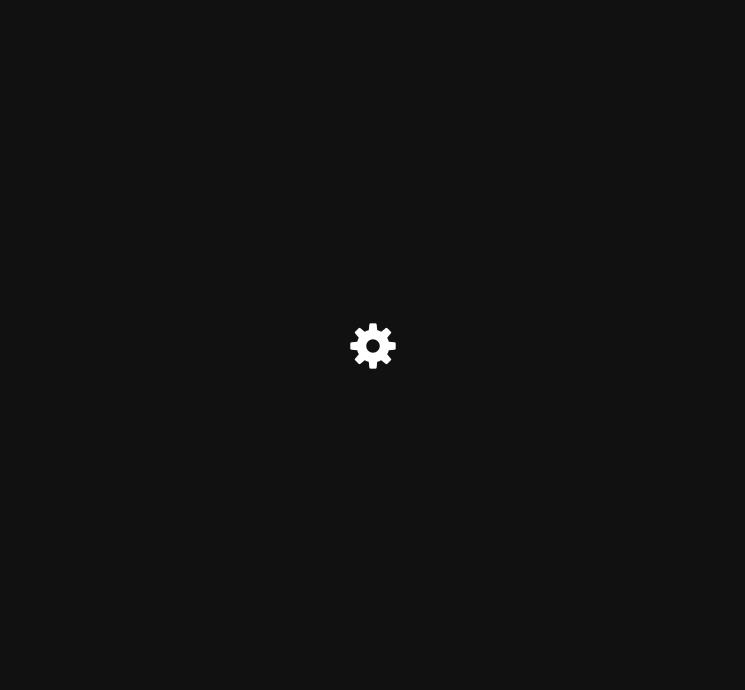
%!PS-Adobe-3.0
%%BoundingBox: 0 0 745 690
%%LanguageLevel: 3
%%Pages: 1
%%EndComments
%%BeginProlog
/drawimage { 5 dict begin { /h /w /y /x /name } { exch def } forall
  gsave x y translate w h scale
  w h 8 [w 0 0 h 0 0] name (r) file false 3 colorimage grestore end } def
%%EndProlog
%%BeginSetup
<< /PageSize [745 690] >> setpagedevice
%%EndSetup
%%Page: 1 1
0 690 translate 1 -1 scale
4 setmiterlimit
0.067 setgray
0 0 745 690 rectfill
(images/1.raw) 350 323 46 46 drawimage
showpage
%%EOF
